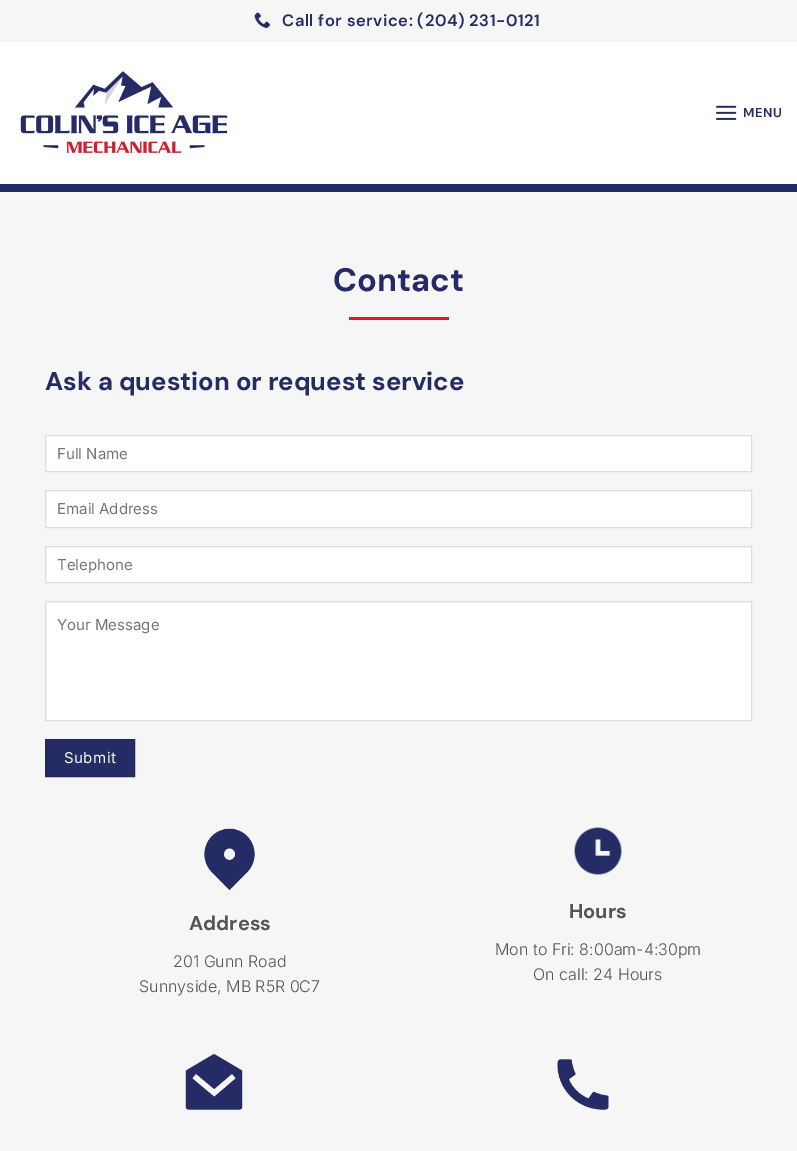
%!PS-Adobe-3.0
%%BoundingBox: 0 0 797 1151
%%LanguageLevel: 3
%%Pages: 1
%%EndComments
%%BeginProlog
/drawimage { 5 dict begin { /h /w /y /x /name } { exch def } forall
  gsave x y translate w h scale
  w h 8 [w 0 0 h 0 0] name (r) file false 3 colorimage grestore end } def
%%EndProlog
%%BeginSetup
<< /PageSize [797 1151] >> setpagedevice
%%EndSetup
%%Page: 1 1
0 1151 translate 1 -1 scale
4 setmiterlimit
0.965 setgray
0 0 797 1151 rectfill
(images/1.raw) 254 12 16 16 drawimage
1 setgray
0 42 797 142 rectfill
(images/2.raw) 20 71 208 82 drawimage
(images/3.raw) 716 105 21 15 drawimage
0.141 0.169 0.396 setrgbcolor
0 184 797 8 rectfill
0.804 0.125 0.188 setrgbcolor
349 317 100 3 rectfill
1 setgray
newpath 45.5 435.5 moveto 751.5 435.5 lineto 751.5 471.5 lineto 45.5 471.5 lineto closepath gsave fill grestore
0.867 setgray
stroke
1 setgray
newpath 45.5 490.5 moveto 751.5 490.5 lineto 751.5 527.5 lineto 45.5 527.5 lineto closepath gsave fill grestore
0.867 setgray
stroke
1 setgray
newpath 45.5 546.5 moveto 751.5 546.5 lineto 751.5 582.5 lineto 45.5 582.5 lineto closepath gsave fill grestore
0.867 setgray
stroke
1 setgray
newpath 45.5 601.5 moveto 751.5 601.5 lineto 751.5 720.5 lineto 45.5 720.5 lineto closepath gsave fill grestore
0.867 setgray
stroke
0.141 0.169 0.396 setrgbcolor
newpath 45.5 739.5 moveto 134.5 739.5 lineto 134.5 776.5 lineto 45.5 776.5 lineto closepath gsave fill grestore
0.133 0.161 0.376 setrgbcolor
stroke
(images/4.raw) 204 828 51 63 drawimage
(images/5.raw) 574 827 48 48 drawimage
(images/6.raw) 185 1054 58 56 drawimage
(images/7.raw) 557 1059 52 51 drawimage
/DMSans-SemiBold [16.5 0 0 -16.5 0 0] selectfont
0.141 0.169 0.396 setrgbcolor
282 26 moveto 0.5 0 (Call for service: \(204\) 231-0121) ashow
/DMSans-SemiBold [13 0 0 -13 0 0] selectfont
743 117 moveto 0.5 0 (MENU) ashow
/DMSans-Bold [32.5 0 0 -32.5 0 0] selectfont
333 291 moveto (Contact) show
/DMSans-Bold [25.6 0 0 -25.6 0 0] selectfont
45 390 moveto (Ask a question or request service) show
/Inter-Regular [15 0 0 -15 0 0] selectfont
0.459 setgray
57 459 moveto (Full Name) show
57 514 moveto (Email Address) show
57 570 moveto (Telephone) show
57 630 moveto (Your Message) show
1 setgray
64 763 moveto 0.5 0 (Submit) ashow
/DMSans-Bold [20 0 0 -20 0 0] selectfont
0.333 setgray
189 930 moveto (Address) show
/Inter-Light [16 0 0 -16 0 0] selectfont
173 967 moveto (201 Gunn Road) show
139 992 moveto (Sunnyside, MB R5R 0C7) show
/DMSans-Bold [20 0 0 -20 0 0] selectfont
569 918 moveto (Hours) show
/Inter-Light [16 0 0 -16 0 0] selectfont
495 955 moveto (Mon to Fri: 8:00am-4:30pm) show
533 980 moveto (On call: 24 Hours) show
showpage
%%EOF
